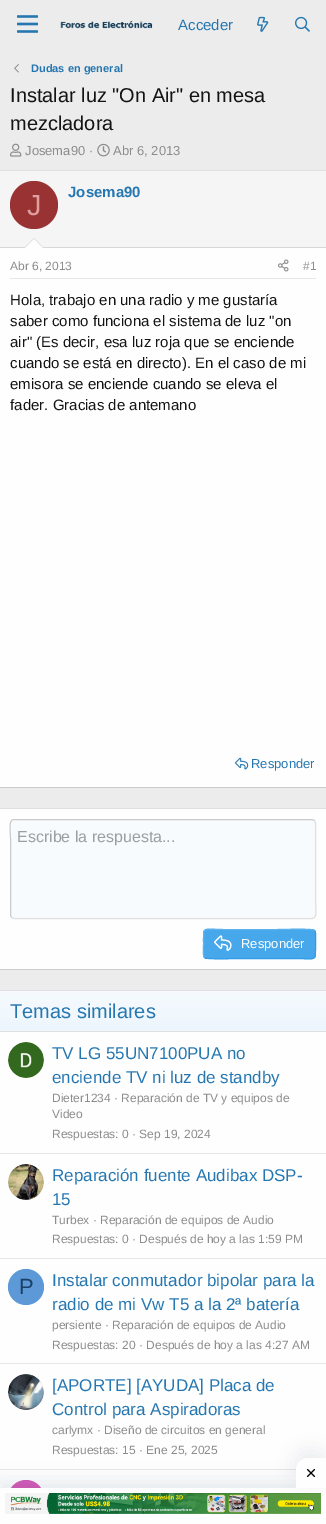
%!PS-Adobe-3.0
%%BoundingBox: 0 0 326 1524
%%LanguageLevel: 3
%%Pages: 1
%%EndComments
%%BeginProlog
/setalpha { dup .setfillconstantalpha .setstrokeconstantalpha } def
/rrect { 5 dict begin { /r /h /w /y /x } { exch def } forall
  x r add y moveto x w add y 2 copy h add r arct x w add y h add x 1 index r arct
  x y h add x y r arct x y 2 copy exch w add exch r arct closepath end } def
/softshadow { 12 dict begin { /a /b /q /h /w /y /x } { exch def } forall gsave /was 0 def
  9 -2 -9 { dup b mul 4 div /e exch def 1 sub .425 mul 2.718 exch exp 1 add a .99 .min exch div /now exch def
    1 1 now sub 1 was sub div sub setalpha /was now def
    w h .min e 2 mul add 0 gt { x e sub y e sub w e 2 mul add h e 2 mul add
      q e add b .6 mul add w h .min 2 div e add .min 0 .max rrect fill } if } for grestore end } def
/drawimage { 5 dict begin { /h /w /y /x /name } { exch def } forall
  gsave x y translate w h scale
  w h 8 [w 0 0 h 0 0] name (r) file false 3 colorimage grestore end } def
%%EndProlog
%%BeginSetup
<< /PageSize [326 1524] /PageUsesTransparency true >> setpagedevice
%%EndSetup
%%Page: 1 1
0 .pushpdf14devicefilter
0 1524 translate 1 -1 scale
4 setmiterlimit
0.925 setgray
0 0 326 1524 rectfill
(images/1.raw) 17 15 21 18 drawimage
(images/2.raw) 60 20 93 9 drawimage
(images/3.raw) 257 16 12 16 drawimage
(images/4.raw) 295 16 15 16 drawimage
(images/5.raw) 14 64 5 9 drawimage
(images/6.raw) 10 143 12 14 drawimage
(images/7.raw) 97 143 13 14 drawimage
0.996 setgray
0 248 326 539 rectfill
0.875 setgray
0 170 326 1 rectfill
0.796 setgray
0 787 326 1 rectfill
0.961 setgray
0 171 326 76 rectfill
0.847 setgray
0 247 326 1 rectfill
0.6 0.2 0.2 setrgbcolor
newpath 34 205 24 0 360 arc closepath fill
0.847 setgray
newpath 44 248 moveto 24 248 lineto 34 238 lineto closepath fill
0.996 setgray
newpath 43 248 moveto 25 248 lineto 34 239 lineto closepath fill
0.906 setgray
10 278 306 1 rectfill
(images/8.raw) 278 259 11 13 drawimage
(images/9.raw) 235 757 14 13 drawimage
0.996 setgray
0 809 326 160 rectfill
0.875 setgray
0 808 326 1 rectfill
0.796 setgray
0 969 326 1 rectfill
0.969 0.984 0.996 setrgbcolor
10 819 306 100 4 rrect fill
0.875 setgray
newpath 314.5 820.5 moveto 315.5 823 lineto 315.5 899.5 lineto 315.5 906.5 318 918.5 312 918.5 curveto 14 918.5 lineto 11.5 917.5 lineto stroke
0.796 setgray
newpath 11.5 917.5 moveto 10.5 915 lineto 10.5 838.5 lineto 10.5 831.5 8 819.5 14 819.5 curveto 312 819.5 lineto 314.5 820.5 lineto stroke
0.278 0.655 0.922 setrgbcolor
203 929 113 30 4 rrect fill
0.188 0.612 0.91 setrgbcolor
newpath 314.5 930.5 moveto 316.5 932.5 315.5 941 315.5 944 curveto 315.5 963 317 958.5 294.5 958.5 curveto 242 958.5 lineto 238.5 958.5 208 959.5 205.5 958 curveto 204.5 957.5 lineto stroke
0.369 0.698 0.929 setrgbcolor
newpath 204.5 957.5 moveto 202.5 955.5 203.5 947 203.5 944 curveto 203.5 925 202 929.5 224.5 929.5 curveto 277 929.5 lineto 280.5 929.5 311 928.5 313.5 930 curveto 314.5 930.5 lineto stroke
(images/10.raw) 214 935 18 16 drawimage
0.996 setgray
0 1032 326 456 rectfill
0.875 setgray
0 990 326 1 rectfill
gsave newpath 0 991 moveto 326 991 lineto 326 1031 lineto 0 1031 lineto closepath clip newpath
<< /ShadingType 2 /ColorSpace /DeviceRGB /Coords [163 1031 163 991] /Extend [true true] /Function << /FunctionType 2 /Domain [0 1] /C0 [0.929 0.965 0.992] /C1 [0.965 0.98 0.996] /N 1 >> >> shfill grestore
0 1031 326 1 rectfill
(images/11.raw) 8 1042 36 36 drawimage
0.906 setgray
0 1153 326 1 rectfill
(images/12.raw) 8 1164 36 36 drawimage
0 1258 326 1 rectfill
0.361 0.6 0.839 setrgbcolor
newpath 26 1287 18 0 360 arc closepath fill
0.906 setgray
0 1363 326 1 rectfill
(images/13.raw) 8 1374 36 36 drawimage
0 1469 297 1 rectfill
0.839 0.361 0.722 setrgbcolor
newpath 26 1498 18 0 360 arc closepath fill
0.035 0.125 0.298 setrgbcolor
0 1482 326 36 0 9 0.1 softshadow
0.996 setgray
0 1488 326 36 rectfill
0.035 0.125 0.298 setrgbcolor
296 1452 30 30 12 9 0.08 softshadow
0.996 setgray
newpath 308 1458 moveto 326 1458 lineto 326 1488 lineto 296 1488 lineto 296 1470 lineto 296 1463.5 301.5 1458 308 1458 curveto closepath fill
(images/14.raw) 306 1468 10 10 drawimage
(images/15.raw) 5 1493 316 21 drawimage
/LiberationSans-Regular [15 0 0 -15 0 0] selectfont
0.145 0.467 0.694 setrgbcolor
178 30 moveto (Acceder) show
/LiberationSans-Bold [11 0 0 -11 0 0] selectfont
31 72 moveto (Dudas en general) show
/LiberationSans-Regular [20 0 0 -20 0 0] selectfont
0.078 setgray
10 102 moveto (Instalar luz "On Air" en mesa) show
10 130 moveto (mezcladora) show
/LiberationSans-Regular [13 0 0 -13 0 0] selectfont
0.549 setgray
25 155 moveto (Josema90 ·) show
113 155 moveto (Abr 6, 2013) show
/LiberationSans-Bold [15 0 0 -15 0 0] selectfont
0.145 0.467 0.694 setrgbcolor
68 197 moveto (Josema90) show
/LiberationSans-Regular [29 0 0 -29 0 0] selectfont
0.875 0.624 0.624 setrgbcolor
27 215 moveto (J) show
/LiberationSans-Regular [12 0 0 -12 0 0] selectfont
0.549 setgray
10 270 moveto (Abr 6, 2013) show
303 270 moveto (#1) show
/LiberationSans-Regular [15 0 0 -15 0 0] selectfont
0.078 setgray
10 305 moveto (Hola, trabajo en una radio y me gustaría) show
10 326 moveto (saber como funciona el sistema de luz "on) show
10 347 moveto (air" \(Es decir, esa luz roja que se enciende) show
10 368 moveto (cuando se está en directo\). En el caso de mi) show
10 389 moveto (emisora se enciende cuando se eleva el) show
10 410 moveto (fader. Gracias de antemano) show
/LiberationSans-Regular [13 0 0 -13 0 0] selectfont
0.145 0.467 0.694 setrgbcolor
251 768 moveto (Responder) show
/LiberationSans-Regular [16 0 0 -16 0 0] selectfont
0.612 0.624 0.627 setrgbcolor
17 842 moveto (Escribe la respuesta...) show
/LiberationSans-Regular [13 0 0 -13 0 0] selectfont
1 setgray
241 948 moveto (Responder) show
/LiberationSans-Regular [20 0 0 -20 0 0] selectfont
0.145 0.467 0.694 setrgbcolor
10 1018 moveto (Temas similares) show
/LiberationSans-Regular [17 0 0 -17 0 0] selectfont
52 1059 moveto (TV LG 55UN7100PUA no) show
52 1083 moveto (enciende TV ni luz de standby) show
/LiberationSans-Regular [12 0 0 -12 0 0] selectfont
0.549 setgray
52 1102 moveto (Dieter1234 · Reparación de TV y equipos de) show
52 1118 moveto (Video) show
52 1138 moveto (Respuestas: 0) show
132 1138 moveto (· Sep 19, 2024) show
/LiberationSans-Regular [17 0 0 -17 0 0] selectfont
0.145 0.467 0.694 setrgbcolor
52 1181 moveto (Reparación fuente Audibax DSP-) show
52 1205 moveto (15) show
/LiberationSans-Regular [12 0 0 -12 0 0] selectfont
0.549 setgray
52 1224 moveto (Turbex · Reparación de equipos de Audio) show
52 1243 moveto (Respuestas: 0) show
132 1243 moveto (· Después de hoy a las 1:59 PM) show
/LiberationSans-Regular [22 0 0 -22 0 0] selectfont
0.102 0.251 0.4 setrgbcolor
19 1294 moveto (P) show
/LiberationSans-Regular [17 0 0 -17 0 0] selectfont
0.145 0.467 0.694 setrgbcolor
52 1286 moveto (Instalar conmutador bipolar para la) show
52 1310 moveto (radio de mi Vw T5 a la 2ª batería) show
/LiberationSans-Regular [12 0 0 -12 0 0] selectfont
0.549 setgray
52 1329 moveto (persiente · Reparación de equipos de Audio) show
52 1349 moveto (Respuestas: 20) show
139 1349 moveto (· Después de hoy a las 4:27 AM) show
/LiberationSans-Regular [17 0 0 -17 0 0] selectfont
0.145 0.467 0.694 setrgbcolor
52 1391 moveto ([APORTE] [AYUDA] Placa de) show
52 1415 moveto (Control para Aspiradoras) show
/LiberationSans-Regular [12 0 0 -12 0 0] selectfont
0.549 setgray
52 1434 moveto (carlymx · Diseño de circuitos en general) show
52 1454 moveto (Respuestas: 15) show
139 1454 moveto (· Ene 25, 2025) show
.poppdf14devicefilter showpage
%%EOF
